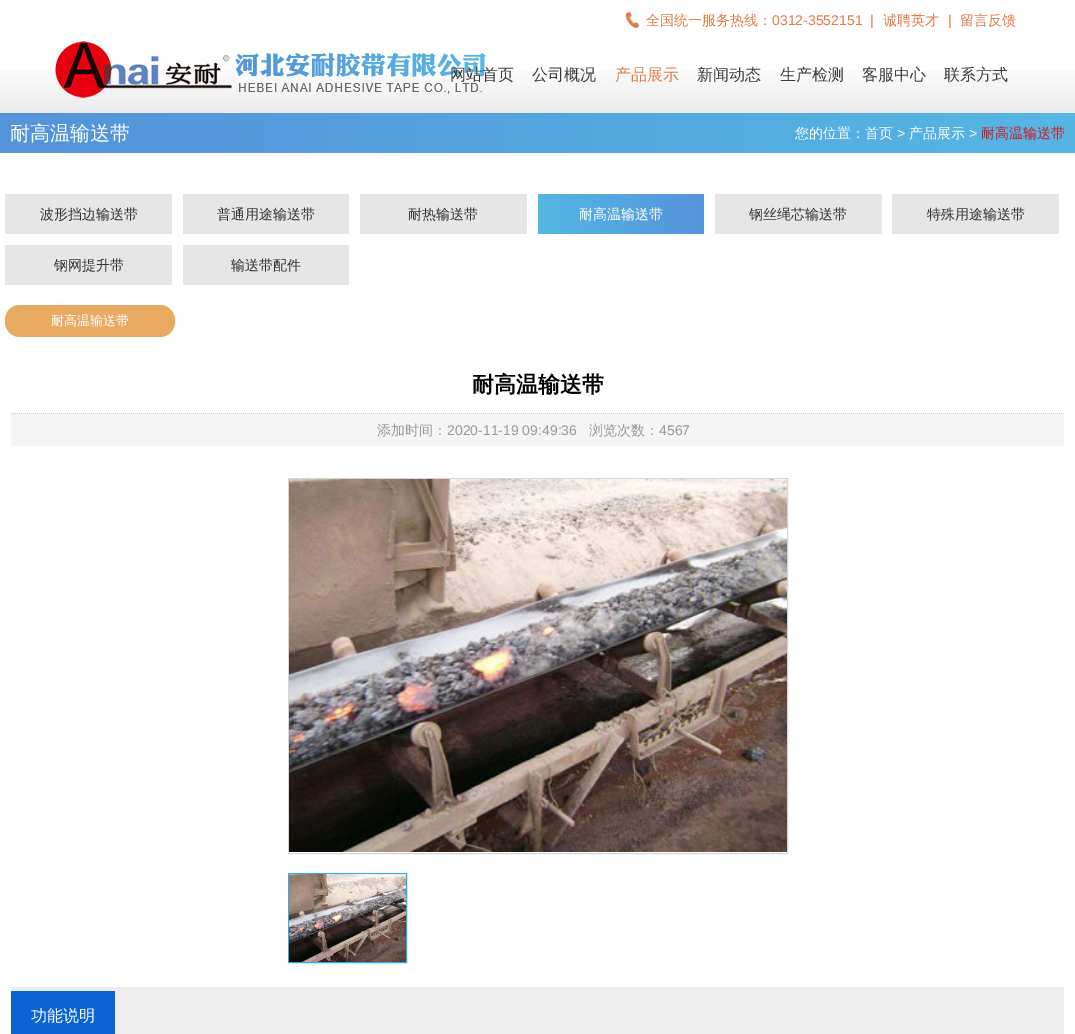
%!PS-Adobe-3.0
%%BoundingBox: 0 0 1075 1034
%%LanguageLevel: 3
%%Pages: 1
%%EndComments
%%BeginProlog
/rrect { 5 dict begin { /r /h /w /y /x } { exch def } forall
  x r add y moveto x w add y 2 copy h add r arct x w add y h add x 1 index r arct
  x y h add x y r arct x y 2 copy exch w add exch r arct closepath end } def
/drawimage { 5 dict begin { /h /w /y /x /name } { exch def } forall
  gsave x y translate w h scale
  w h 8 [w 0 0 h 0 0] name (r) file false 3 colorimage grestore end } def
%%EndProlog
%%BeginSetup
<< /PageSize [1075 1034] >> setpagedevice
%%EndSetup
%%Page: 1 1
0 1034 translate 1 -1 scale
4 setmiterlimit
1 setgray
0 0 1075 1034 rectfill
(images/1.raw) 0 71 1075 42 drawimage
(images/2.raw) 626 12 13 16 drawimage
(images/3.raw) 55 41 431 57 drawimage
gsave newpath 0 113 moveto 1075 113 lineto 1075 153 lineto 0 153 lineto closepath clip newpath
<< /ShadingType 2 /ColorSpace /DeviceRGB /Coords [1075 133 0 133] /Extend [true true] /Function << /FunctionType 2 /Domain [0 1] /C0 [0.333 0.714 0.894] /C1 [0.329 0.58 0.855] /N 1 >> >> shfill grestore
0.902 setgray
5 194 167 40 rectfill
183 194 166 40 rectfill
360 194 167 40 rectfill
gsave newpath 538 194 moveto 704 194 lineto 704 234 lineto 538 234 lineto closepath clip newpath
<< /ShadingType 2 /ColorSpace /DeviceRGB /Coords [704 214 538 214] /Extend [true true] /Function << /FunctionType 2 /Domain [0 1] /C0 [0.329 0.58 0.855] /C1 [0.333 0.714 0.894] /N 1 >> >> shfill grestore
715 194 167 40 rectfill
892 194 167 40 rectfill
5 245 167 40 rectfill
183 245 166 40 rectfill
0.91 0.663 0.376 setrgbcolor
5 305 170 32 15 rrect fill
0.8 setgray
[1 1] 0 setdash
newpath 11 413.5 moveto 1064 413.5 lineto stroke
0.961 setgray
11 414 1053 32 rectfill
0.839 setgray
[] 0 setdash
288.5 478.5 499 375 rectstroke
(images/4.raw) 289 479 498 373 drawimage
0.192 0.675 0.886 setrgbcolor
288.5 873.5 118 89 rectstroke
(images/5.raw) 289 874 117 88 drawimage
0.929 setgray
11 987 1053 47 rectfill
0.047 0.388 0.831 setrgbcolor
11 991 104 43 rectfill
/WenQuanYiZenHei-Medium [14 0 0 -14 0 0] selectfont
0.882 0.486 0.29 setrgbcolor
646 25 moveto (全国统一服务热线：) show
/LiberationSans-Regular [14 0 0 -14 0 0] selectfont
772 25 moveto (0312-3552151) show
870 25 moveto (|) show
/WenQuanYiZenHei-Medium [14 0 0 -14 0 0] selectfont
883 25 moveto (诚聘英才) show
/LiberationSans-Regular [14 0 0 -14 0 0] selectfont
948 25 moveto (|) show
/WenQuanYiZenHei-Medium [14 0 0 -14 0 0] selectfont
960 25 moveto (留言反馈) show
/WenQuanYiZenHei-Medium [16 0 0 -16 0 0] selectfont
0.227 setgray
450 80 moveto (网站首页) show
532 80 moveto (公司概况) show
0.882 0.486 0.29 setrgbcolor
615 80 moveto (产品展示) show
0.227 setgray
697 80 moveto (新闻动态) show
780 80 moveto (生产检测) show
862 80 moveto (客服中心) show
944 80 moveto (联系方式) show
/WenQuanYiZenHei-Medium [20 0 0 -20 0 0] selectfont
1 setgray
10 140 moveto (耐高温输送带) show
/WenQuanYiZenHei-Medium [14 0 0 -14 0 0] selectfont
795 138 moveto (您的位置：首页) show
/LiberationSans-Regular [14 0 0 -14 0 0] selectfont
897 138 moveto (>) show
/WenQuanYiZenHei-Medium [14 0 0 -14 0 0] selectfont
909 138 moveto (产品展示) show
/LiberationSans-Regular [14 0 0 -14 0 0] selectfont
969 138 moveto (>) show
/WenQuanYiZenHei-Medium [14 0 0 -14 0 0] selectfont
0.843 0.094 0.125 setrgbcolor
981 138 moveto (耐高温输送带) show
0.2 setgray
40 219 moveto (波形挡边输送带) show
217 219 moveto (普通用途输送带) show
408 219 moveto (耐热输送带) show
1 setgray
579 219 moveto (耐高温输送带) show
0.2 setgray
749 219 moveto (钢丝绳芯输送带) show
927 219 moveto (特殊用途输送带) show
54 270 moveto (钢网提升带) show
231 270 moveto (输送带配件) show
/WenQuanYiZenHei-Medium [13 0 0 -13 0 0] selectfont
1 setgray
51 325 moveto (耐高温输送带) show
/WenQuanYiZenHei-Bold [22 0 0 -22 0 0] selectfont
0 setgray
472 392 moveto (耐高温输送带) show
/WenQuanYiZenHei-Medium [14 0 0 -14 0 0] selectfont
0.6 setgray
377 435 moveto (添加时间：) show
/LiberationSans-Regular [14 0 0 -14 0 0] selectfont
447 435 moveto (2020-11-19 09:49:36) show
/WenQuanYiZenHei-Medium [14 0 0 -14 0 0] selectfont
589 435 moveto (浏览次数：) show
/LiberationSans-Regular [14 0 0 -14 0 0] selectfont
659 435 moveto (4567) show
/WenQuanYiZenHei-Medium [16 0 0 -16 0 0] selectfont
1 setgray
31 1021 moveto (功能说明) show
showpage
%%EOF
